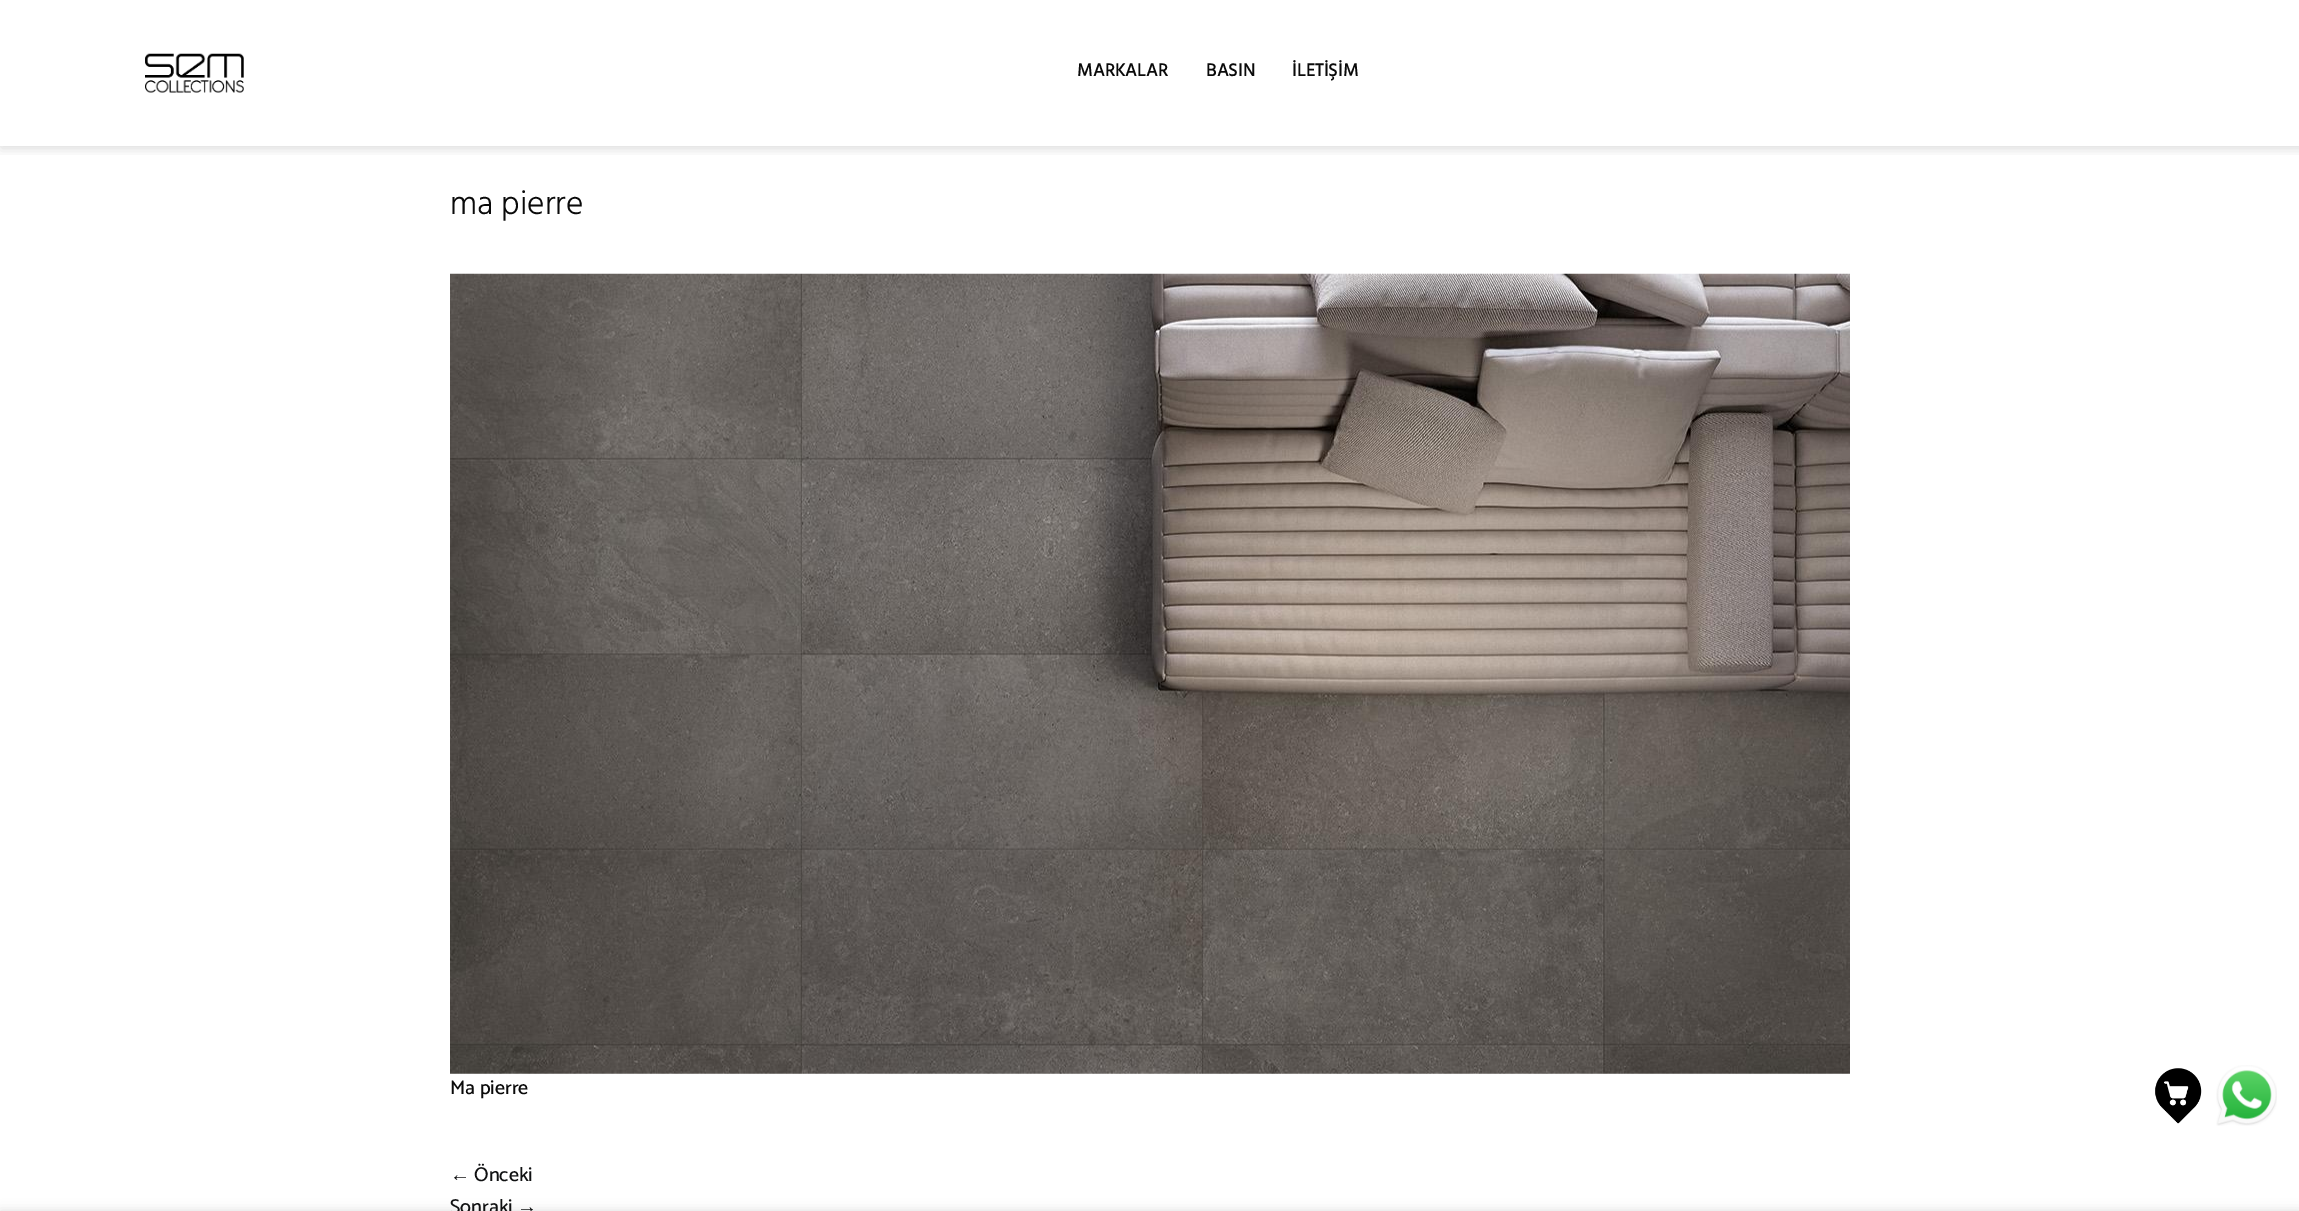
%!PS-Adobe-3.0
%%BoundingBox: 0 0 2299 1211
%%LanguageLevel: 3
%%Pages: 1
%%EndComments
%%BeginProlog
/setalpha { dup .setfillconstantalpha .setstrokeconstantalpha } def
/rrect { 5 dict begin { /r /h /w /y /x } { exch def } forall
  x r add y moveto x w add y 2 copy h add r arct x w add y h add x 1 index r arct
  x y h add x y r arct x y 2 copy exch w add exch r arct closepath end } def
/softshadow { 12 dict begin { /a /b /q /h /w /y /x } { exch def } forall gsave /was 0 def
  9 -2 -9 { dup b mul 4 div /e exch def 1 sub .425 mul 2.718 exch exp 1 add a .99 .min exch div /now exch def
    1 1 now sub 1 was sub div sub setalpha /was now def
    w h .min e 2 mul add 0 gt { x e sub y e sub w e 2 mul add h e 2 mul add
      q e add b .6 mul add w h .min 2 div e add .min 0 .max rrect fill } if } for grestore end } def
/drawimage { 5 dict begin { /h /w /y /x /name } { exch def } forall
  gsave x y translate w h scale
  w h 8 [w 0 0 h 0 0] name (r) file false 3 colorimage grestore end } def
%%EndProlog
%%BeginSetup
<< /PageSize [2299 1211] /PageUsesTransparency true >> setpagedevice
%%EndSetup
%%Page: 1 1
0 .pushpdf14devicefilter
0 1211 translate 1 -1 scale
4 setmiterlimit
1 setgray
0 0 2299 1211 rectfill
gsave
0 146 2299 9 rectclip
0 setgray
1 1 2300 147 0 6 0.15 softshadow
grestore
(images/1.raw) 145 53 99 40 drawimage
(images/2.raw) 450 273 1400 801 drawimage
(images/3.raw) 2155 1068 47 56 drawimage
(images/4.raw) 2216 1065 61 61 drawimage
0 setgray
0 1211 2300 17 0 5.5 0.14 softshadow
/HindGuntur-Bold [18 0 0 -18 0 0] selectfont
0.039 setgray
1077 76 moveto 0.25 0 (MARKALAR) ashow
1206 76 moveto 0.25 0 (BASIN) ashow
1292 76 moveto 0.25 0 (İLETİŞİM) ashow
/Hind-Light [33.5 0 0 -33.5 0 0] selectfont
450 214 moveto (ma pierre) show
/Catamaran-Medium [20 0 0 -20 0 0] selectfont
450 1094 moveto (Ma pierre) show
/LiberationSans-Regular [20 0 0 -20 0 0] selectfont
0.063 0.067 0.071 setrgbcolor
450 1181 moveto (←) show
/Catamaran-Medium [20 0 0 -20 0 0] selectfont
474 1181 moveto (Önceki) show
450 1213 moveto (Sonraki) show
/LiberationSans-Regular [20 0 0 -20 0 0] selectfont
517 1213 moveto (→) show
.poppdf14devicefilter showpage
%%EOF
